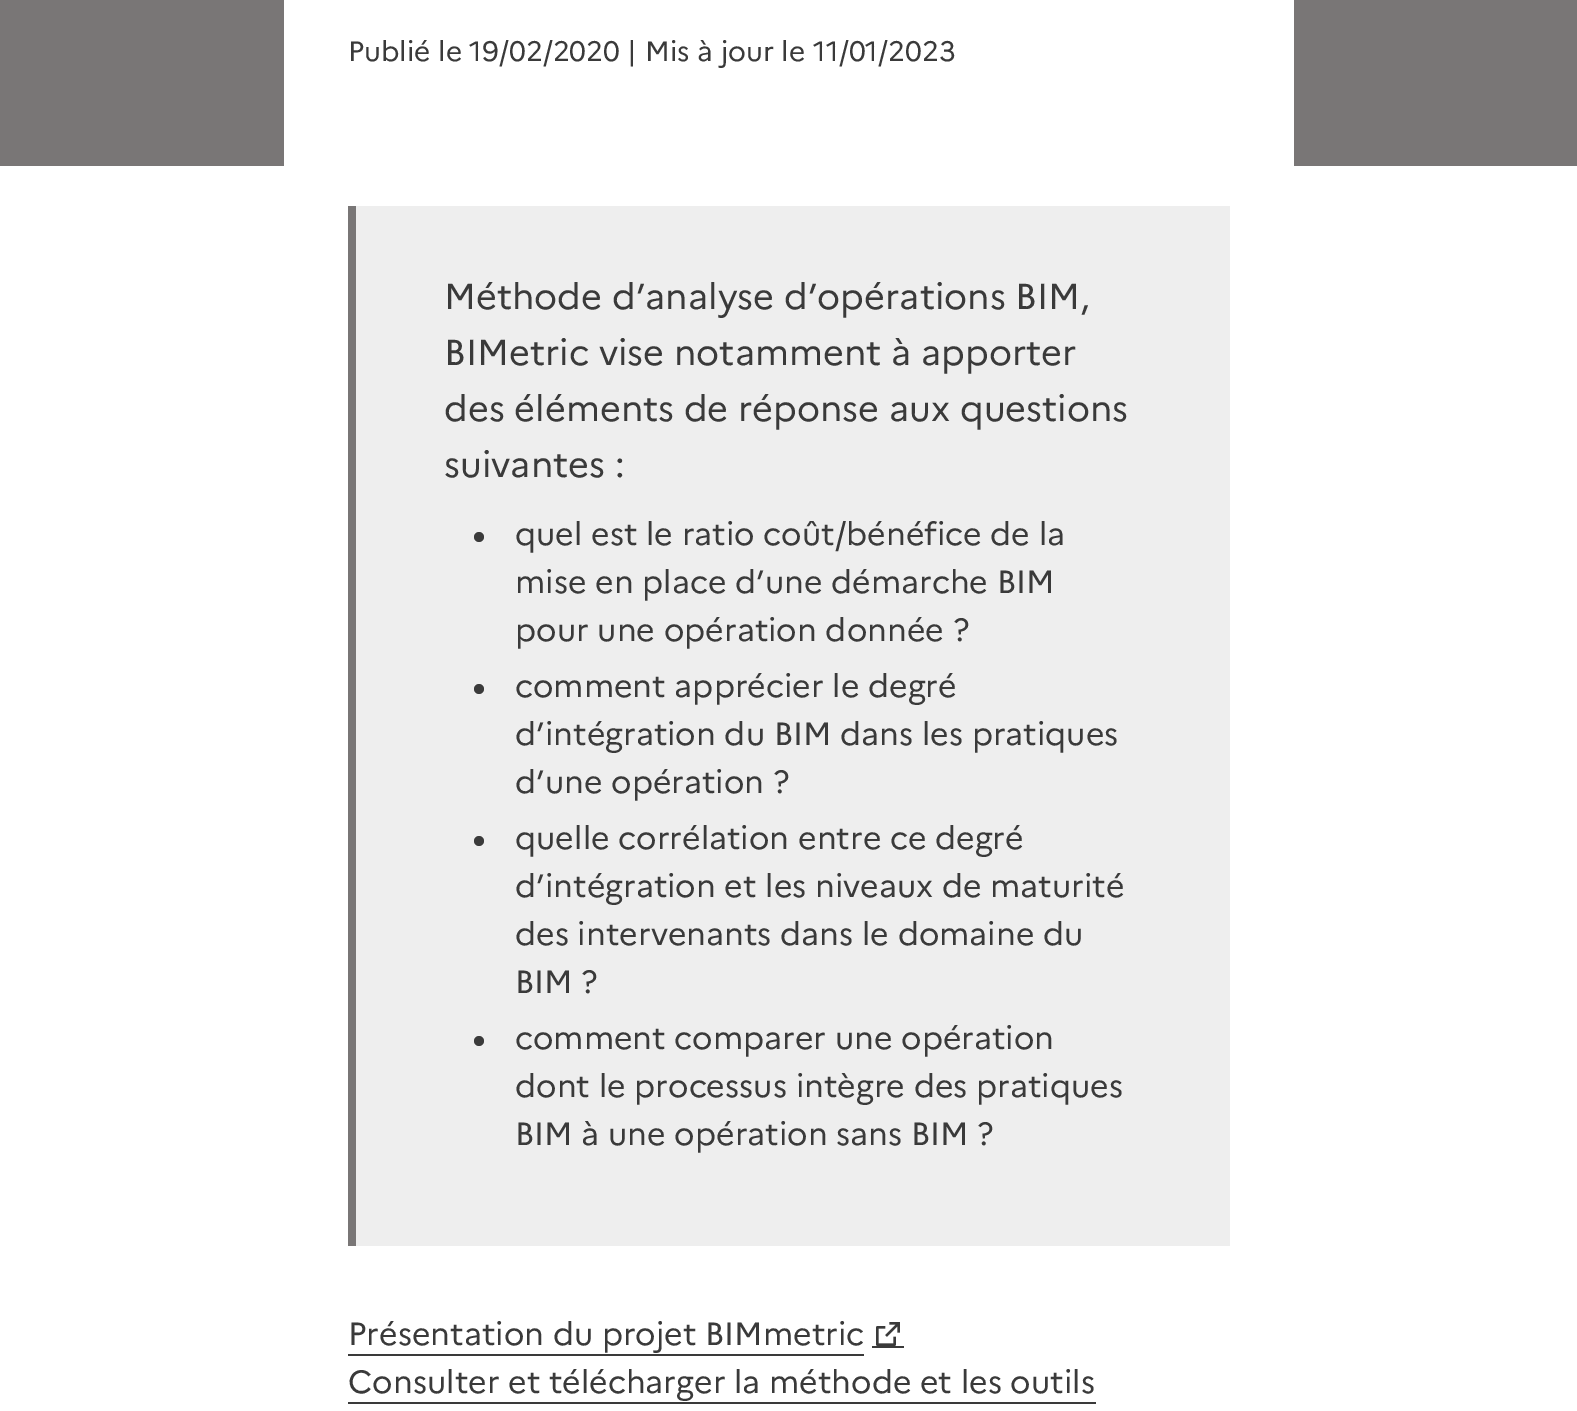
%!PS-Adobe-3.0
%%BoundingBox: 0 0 1577 1411
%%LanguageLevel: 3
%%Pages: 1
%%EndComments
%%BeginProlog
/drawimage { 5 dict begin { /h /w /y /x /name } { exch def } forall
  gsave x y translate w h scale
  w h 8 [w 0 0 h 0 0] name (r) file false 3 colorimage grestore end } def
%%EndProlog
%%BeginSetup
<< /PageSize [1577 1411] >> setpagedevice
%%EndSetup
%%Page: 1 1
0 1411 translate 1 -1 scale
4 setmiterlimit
1 setgray
0 0 1577 1411 rectfill
0.475 0.463 0.463 setrgbcolor
0 0 1577 166 rectfill
1 setgray
284 0 1010 166 rectfill
0.933 setgray
356 206 874 1040 rectfill
0.475 0.463 0.463 setrgbcolor
348 206 8 1040 rectfill
0.227 setgray
newpath 479 537 5 0 360 arc closepath fill
newpath 479 689 5 0 360 arc closepath fill
newpath 479 841 5 0 360 arc closepath fill
newpath 479 1041 5 0 360 arc closepath fill
348 1354 516 2 rectfill
872 1346 32 2 rectfill
(images/1.raw) 876 1322 24 24 drawimage
348 1402 748 2 rectfill
/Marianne-Regular [28 0 0 -28 0 0] selectfont
348 61 moveto (Publié le 19/02/2020 | Mis à jour le 11/01/2023) show
/Marianne-Regular [36 0 0 -36 0 0] selectfont
444 309 moveto (Méthode d’analyse d’opérations BIM,) show
444 365 moveto (BIMetric vise notamment à apporter) show
444 421 moveto (des éléments de réponse aux questions) show
444 477 moveto (suivantes :) show
/Marianne-Regular [32 0 0 -32 0 0] selectfont
515 545 moveto (quel est le ratio coût/bénéfice de la) show
515 593 moveto (mise en place d’une démarche BIM) show
515 641 moveto (pour une opération donnée ?) show
515 697 moveto (comment apprécier le degré) show
515 745 moveto (d’intégration du BIM dans les pratiques) show
515 793 moveto (d’une opération ?) show
515 849 moveto (quelle corrélation entre ce degré) show
515 897 moveto (d’intégration et les niveaux de maturité) show
515 945 moveto (des intervenants dans le domaine du) show
515 993 moveto (BIM ?) show
515 1049 moveto (comment comparer une opération) show
515 1097 moveto (dont le processus intègre des pratiques) show
515 1145 moveto (BIM à une opération sans BIM ?) show
348 1345 moveto (Présentation du projet BIMmetric) show
348 1393 moveto (Consulter et télécharger la méthode et les outils) show
showpage
%%EOF
